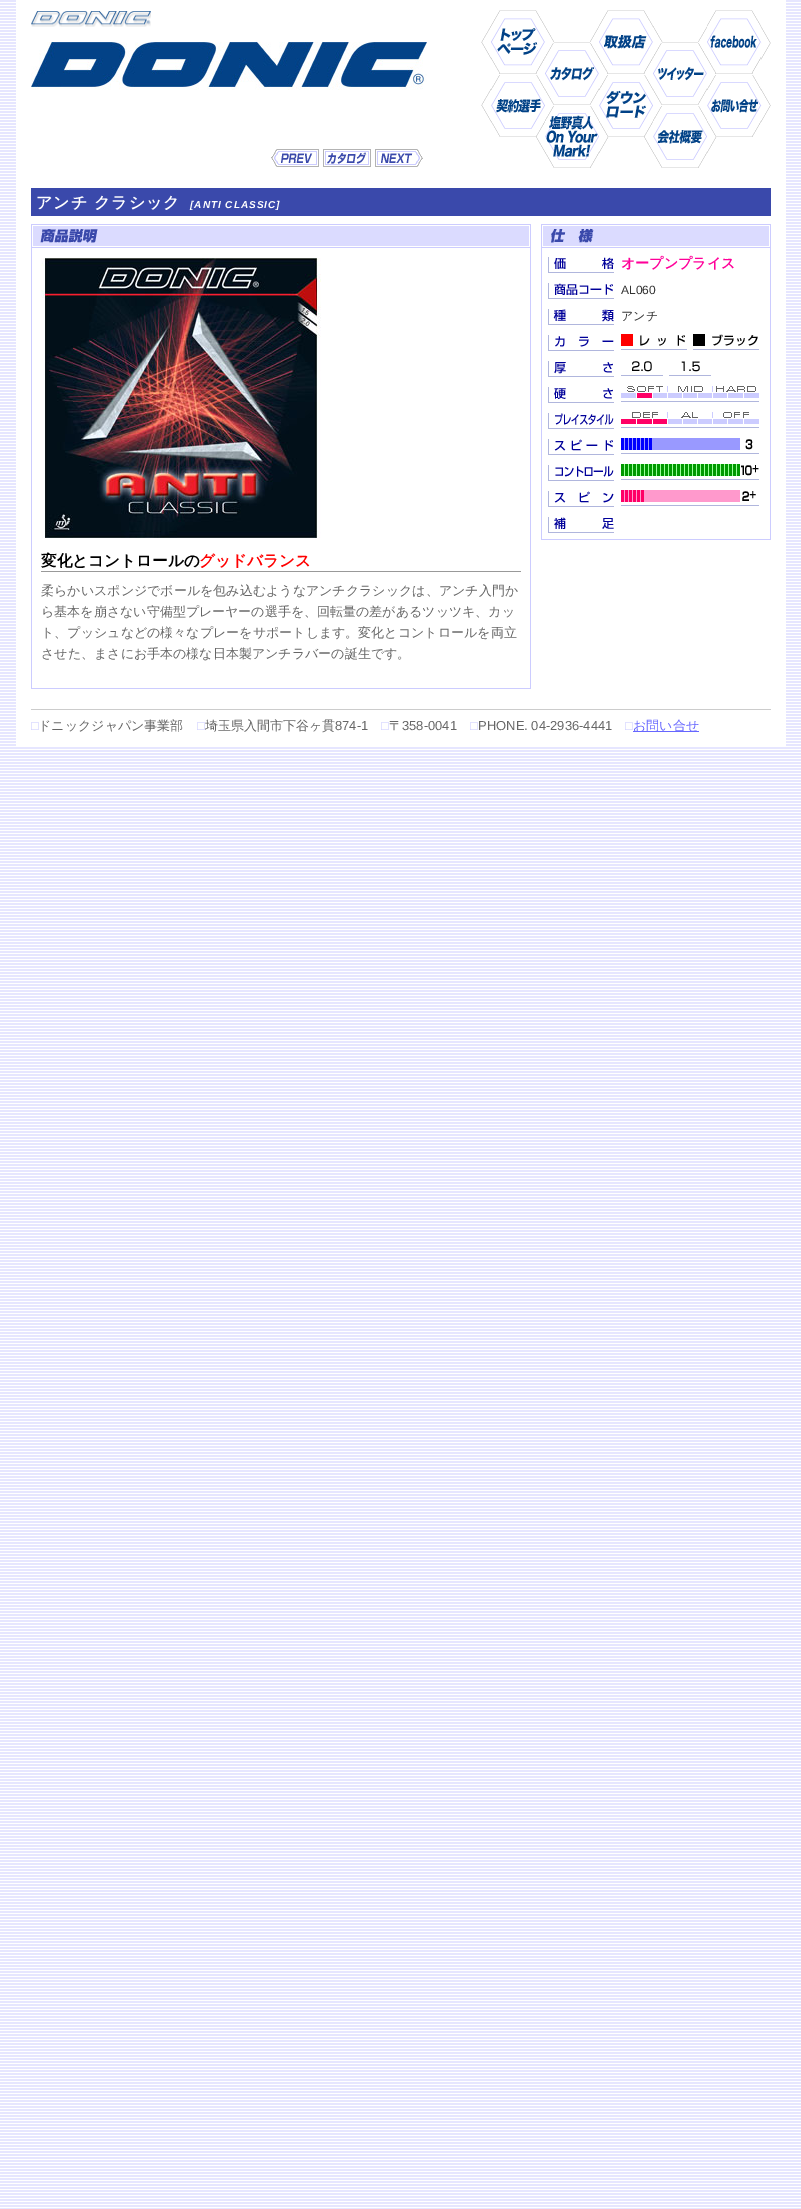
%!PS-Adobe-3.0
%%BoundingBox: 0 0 801 2209
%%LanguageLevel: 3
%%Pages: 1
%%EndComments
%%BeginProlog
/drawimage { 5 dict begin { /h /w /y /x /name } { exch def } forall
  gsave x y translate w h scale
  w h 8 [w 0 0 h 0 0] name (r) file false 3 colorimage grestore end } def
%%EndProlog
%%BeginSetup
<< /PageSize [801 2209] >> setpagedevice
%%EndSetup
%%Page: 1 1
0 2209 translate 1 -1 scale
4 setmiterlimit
1 setgray
0 0 801 2209 rectfill
(images/1.raw) 0 0 801 2209 drawimage
16 0 770 746 rectfill
(images/2.raw) 31 42 396 48 drawimage
(images/3.raw) 31 11 120 16 drawimage
(images/4.raw) 271 149 48 18 drawimage
(images/5.raw) 323 149 48 18 drawimage
(images/6.raw) 375 149 48 18 drawimage
(images/7.raw) 481 26 10 33 drawimage
(images/8.raw) 491 10 54 64 drawimage
(images/9.raw) 545 26 54 16 drawimage
(images/10.raw) 599 10 54 64 drawimage
(images/11.raw) 653 26 54 16 drawimage
(images/12.raw) 707 10 54 64 drawimage
(images/13.raw) 761 26 10 96 drawimage
(images/14.raw) 545 42 54 63 drawimage
(images/15.raw) 653 42 54 63 drawimage
(images/7.raw) 481 89 10 33 drawimage
(images/16.raw) 491 75 54 62 drawimage
(images/17.raw) 599 75 54 62 drawimage
(images/18.raw) 707 75 54 62 drawimage
(images/19.raw) 545 106 54 62 drawimage
(images/20.raw) 653 106 54 62 drawimage
(images/21.raw) 536 137 9 16 drawimage
(images/22.raw) 599 137 54 16 drawimage
(images/23.raw) 707 137 10 16 drawimage
0.227 0.286 0.671 setrgbcolor
31 188 740 28 rectfill
(images/24.raw) 541 224 230 24 drawimage
0.8 0.8 1 setrgbcolor
770 248 1 292 rectfill
541 539 230 1 rectfill
541 248 1 292 rectfill
(images/25.raw) 548 257 66 16 drawimage
(images/26.raw) 548 283 66 16 drawimage
(images/27.raw) 548 309 66 16 drawimage
(images/28.raw) 548 335 66 16 drawimage
(images/29.raw) 621 334 66 16 drawimage
(images/30.raw) 693 334 66 16 drawimage
(images/31.raw) 548 361 66 16 drawimage
(images/32.raw) 621 361 42 15 drawimage
(images/33.raw) 669 361 42 15 drawimage
(images/34.raw) 548 387 66 16 drawimage
(images/35.raw) 621 386 138 16 drawimage
(images/36.raw) 548 413 66 16 drawimage
(images/37.raw) 621 412 138 16 drawimage
(images/38.raw) 548 439 66 16 drawimage
(images/39.raw) 621 438 138 16 drawimage
(images/40.raw) 548 465 66 16 drawimage
(images/41.raw) 621 464 138 16 drawimage
(images/42.raw) 548 491 66 16 drawimage
(images/43.raw) 621 490 138 16 drawimage
(images/44.raw) 548 517 66 16 drawimage
(images/45.raw) 31 224 500 24 drawimage
530 248 1 441 rectfill
31 688 500 1 rectfill
31 248 1 441 rectfill
(images/46.raw) 41 258 280 280 drawimage
0.6 setgray
41 571 480 1 rectfill
0.8 setgray
31 709 740 1 rectfill
0.4 0.4 1 setrgbcolor
633 731 66 1 rectfill
/WenQuanYiZenHei-Bold [16 0 0 -16 0 0] selectfont
1 setgray
36 208 moveto 1 0 (アンチ クラシック) ashow
/LiberationSans-BoldItalic [10 0 0 -10 0 0] selectfont
190 208 moveto 1 0 ([ANTI CLASSIC]) ashow
/WenQuanYiZenHei-Bold [14 0 0 -14 0 0] selectfont
1 0 0.6 setrgbcolor
621 268 moveto (オープンプライス) show
/LiberationSans-Regular [12 0 0 -12 0 0] selectfont
0.2 setgray
621 294 moveto (AL060) show
/WenQuanYiZenHei-Medium [12 0 0 -12 0 0] selectfont
621 320 moveto (アンチ) show
/WenQuanYiZenHei-Bold [15.6 0 0 -15.6 0 0] selectfont
0 setgray
41 566 moveto (変化とコントロールの) show
1 0 0 setrgbcolor
199 566 moveto (グッドバランス) show
/WenQuanYiZenHei-Medium [13 0 0 -13 0 0] selectfont
0.4 setgray
41 595 moveto (柔らかいスポンジでボールを包み込むようなアンチクラシックは、アンチ入門か) show
41 616 moveto (ら基本を崩さない守備型プレーヤーの選手を、回転量の差があるツッツキ、カッ) show
41 637 moveto (ト、プッシュなどの様々なプレーをサポートします。変化とコントロールを両立) show
41 658 moveto (させた、まさにお手本の様な日本製アンチラバーの誕生です。) show
/LiberationSans-Regular [13 0 0 -13 0 0] selectfont
0.8 0.8 1 setrgbcolor
31 730 moveto (□) show
/WenQuanYiZenHei-Medium [13 0 0 -13 0 0] selectfont
0.4 setgray
38 730 moveto (ドニックジャパン事業部) show
/LiberationSans-Regular [13 0 0 -13 0 0] selectfont
0.8 0.8 1 setrgbcolor
197 730 moveto (□) show
/WenQuanYiZenHei-Medium [13 0 0 -13 0 0] selectfont
0.4 setgray
205 730 moveto (埼玉県入間市下谷ヶ貫) show
/LiberationSans-Regular [13 0 0 -13 0 0] selectfont
335 730 moveto (874-1) show
0.8 0.8 1 setrgbcolor
381 730 moveto (□) show
/WenQuanYiZenHei-Medium [13 0 0 -13 0 0] selectfont
0.4 setgray
389 730 moveto (〒) show
/LiberationSans-Regular [13 0 0 -13 0 0] selectfont
402 730 moveto (358-0041) show
0.8 0.8 1 setrgbcolor
470 730 moveto (□) show
0.4 setgray
478 730 moveto (PHONE. 04-2936-4441) show
0.8 0.8 1 setrgbcolor
625 730 moveto (□) show
/WenQuanYiZenHei-Medium [13 0 0 -13 0 0] selectfont
0.4 0.4 1 setrgbcolor
633 730 moveto (お問い合せ) show
showpage
%%EOF
